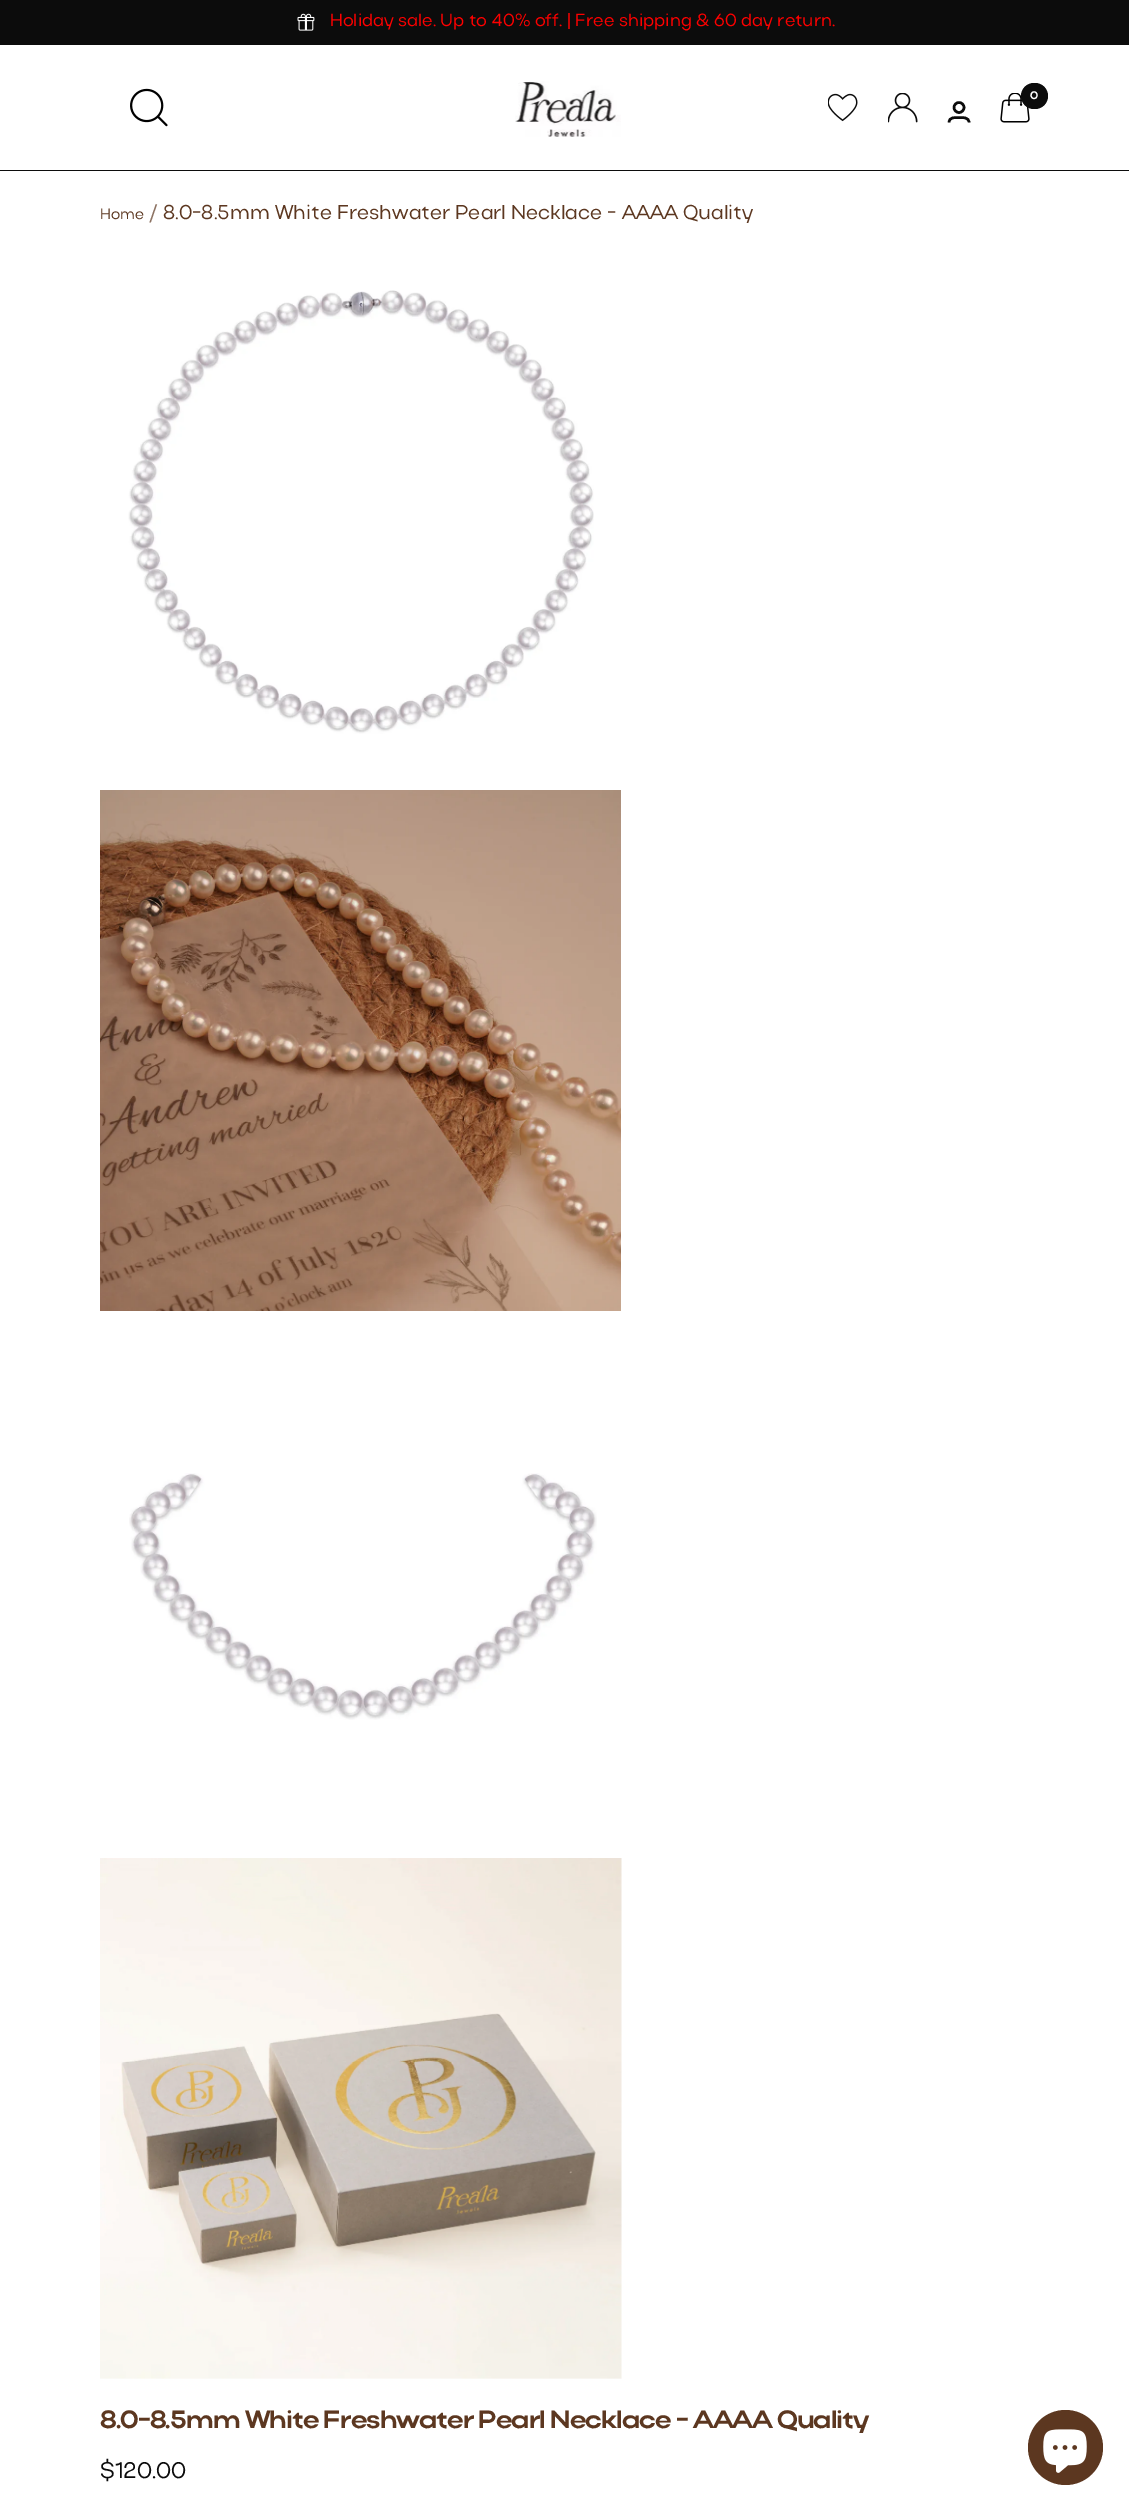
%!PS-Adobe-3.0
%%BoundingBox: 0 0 1129 2511
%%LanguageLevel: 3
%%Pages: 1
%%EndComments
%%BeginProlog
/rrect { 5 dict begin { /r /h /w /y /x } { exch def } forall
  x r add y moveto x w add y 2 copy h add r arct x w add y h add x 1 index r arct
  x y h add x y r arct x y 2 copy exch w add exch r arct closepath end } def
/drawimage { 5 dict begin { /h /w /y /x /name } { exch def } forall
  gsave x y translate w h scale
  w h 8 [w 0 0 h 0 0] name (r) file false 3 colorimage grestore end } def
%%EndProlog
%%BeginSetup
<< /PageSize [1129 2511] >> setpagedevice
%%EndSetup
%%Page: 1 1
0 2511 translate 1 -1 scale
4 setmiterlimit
1 setgray
0 0 1129 2511 rectfill
0.047 setgray
0 0 1129 45 rectfill
(images/1.raw) 297 13 18 18 drawimage
0 170 1129 1 rectfill
(images/2.raw) 130 88 38 39 drawimage
(images/3.raw) 515 81 106 56 drawimage
(images/4.raw) 828 93 30 29 drawimage
(images/5.raw) 888 93 30 30 drawimage
2.5 setlinewidth
newpath 959 107.5 5 0 360 arc closepath stroke
newpath 949 122.5 moveto 949 117 955 117.5 959 117.5 curveto 962.5 117.5 969 117 969 122.5 curveto stroke
(images/6.raw) 1000 93 30 30 drawimage
1021 83 27 26 13 rrect fill
(images/7.raw) 128 290 466 444 drawimage
(images/8.raw) 100 790 521 521 drawimage
(images/9.raw) 129 1473 468 247 drawimage
(images/10.raw) 100 1858 522 521 drawimage
0.361 0.216 0.125 setrgbcolor
newpath 1065.5 2447.5 37.5 0 360 arc closepath fill
(images/11.raw) 1043 2429 44 44 drawimage
/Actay-Regular [17.5 0 0 -17.5 0 0] selectfont
1 0 0 setrgbcolor
330 26 moveto (Holiday sale. Up to 40% off. | Free shipping & 60 day return.) show
/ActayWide-Bold [11 0 0 -11 0 0] selectfont
1 setgray
1030 99 moveto (0) show
/Actay-Regular [15 0 0 -15 0 0] selectfont
0.361 0.216 0.125 setrgbcolor
100 219 moveto (Home) show
/Actay-Regular [20 0 0 -20 0 0] selectfont
0.553 0.451 0.388 setrgbcolor
149 219 moveto (/) show
0.361 0.216 0.125 setrgbcolor
163 219 moveto (8.0-8.5mm White Freshwater Pearl Necklace - AAAA Quality) show
/ActayWide-Bold [25 0 0 -25 0 0] selectfont
100 2428 moveto -1 0 (8.0-8.5mm White Freshwater Pearl Necklace - AAAA Quality) ashow
/Actay-Regular [22.5 0 0 -22.5 0 0] selectfont
0.047 setgray
100 2478 moveto ($120.00) show
showpage
%%EOF
